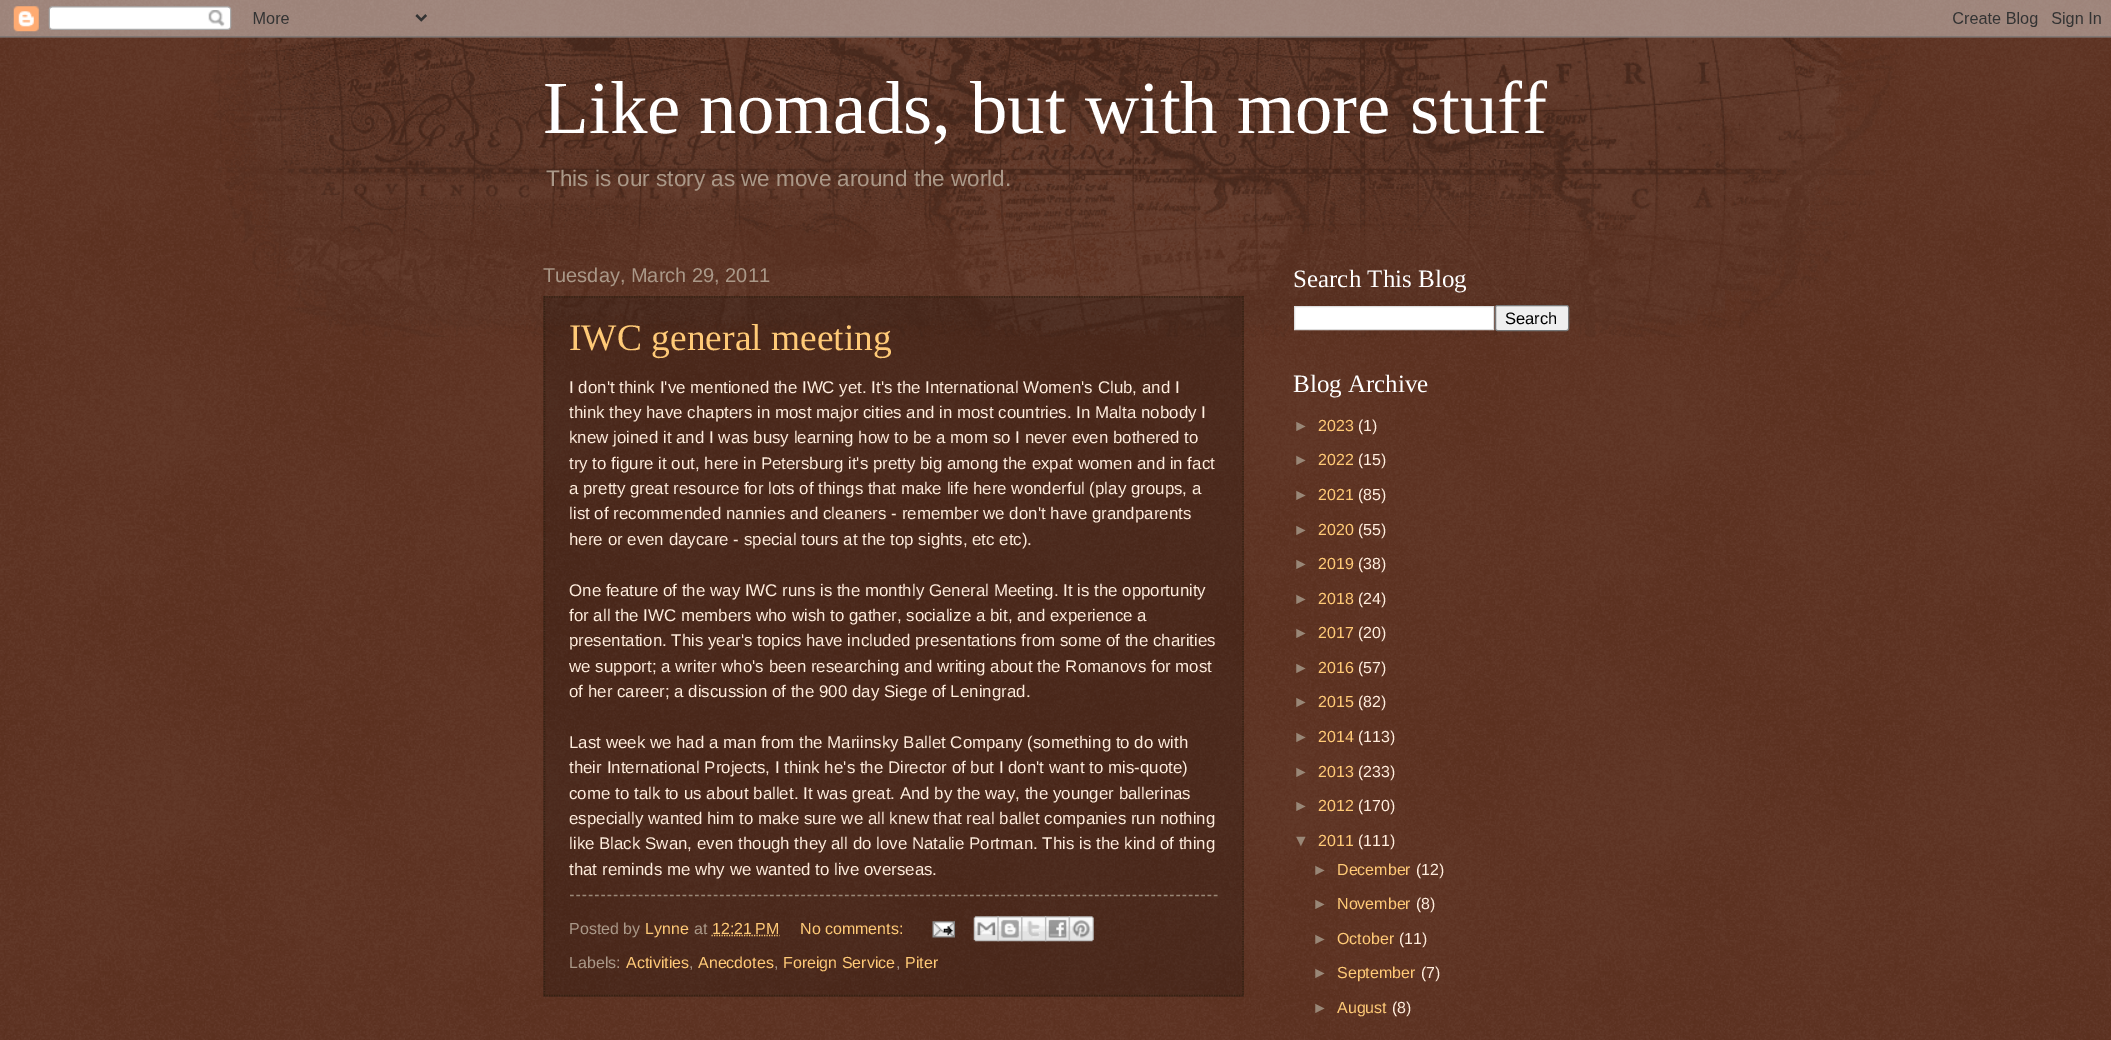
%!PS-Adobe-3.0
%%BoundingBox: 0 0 2111 1040
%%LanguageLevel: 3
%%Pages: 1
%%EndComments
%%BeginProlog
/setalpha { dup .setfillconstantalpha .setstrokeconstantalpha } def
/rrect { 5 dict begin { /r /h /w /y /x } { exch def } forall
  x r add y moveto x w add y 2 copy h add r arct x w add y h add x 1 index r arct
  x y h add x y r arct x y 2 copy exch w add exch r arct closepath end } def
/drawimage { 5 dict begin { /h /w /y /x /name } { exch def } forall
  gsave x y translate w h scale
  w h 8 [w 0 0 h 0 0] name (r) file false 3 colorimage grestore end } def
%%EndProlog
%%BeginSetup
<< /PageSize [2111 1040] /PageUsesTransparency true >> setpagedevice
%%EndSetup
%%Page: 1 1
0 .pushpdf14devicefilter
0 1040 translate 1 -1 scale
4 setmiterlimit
0.267 0.075 0 setrgbcolor
0 0 2111 1040 rectfill
(images/1.raw) 0 0 2111 1040 drawimage
(images/3.raw) 210 37 1690 300 drawimage
(images/2.raw) 0 0 2111 38 drawimage
0.2 setalpha
0 setgray
543 296 701 701 rectfill
1 setalpha
0.2 0.129 0.067 setrgbcolor
1.2 setlinewidth
[1.25 1.25] 0 setdash
newpath 544 297 moveto 1244 297 lineto stroke
newpath 1243 296 moveto 1243 996 lineto stroke
newpath 544 995.5 moveto 1244 995.5 lineto stroke
newpath 544.5 296 moveto 544.5 996 lineto stroke
0.6 0.529 0.467 setrgbcolor
[3.75 2.5] 0 setdash
newpath 570 895.5 moveto 1217.5 895.5 lineto stroke
1 0.792 0.467 setrgbcolor
[1.25 1.25] 0 setdash
newpath 711.5 935.5 moveto 779.5 935.5 lineto stroke
(images/4.raw) 932 921 23 17 drawimage
(images/5.raw) 973 916 26 26 drawimage
(images/6.raw) 997 916 26 26 drawimage
(images/7.raw) 1021 916 26 26 drawimage
(images/8.raw) 1045 916 25 26 drawimage
(images/9.raw) 1068 916 26 26 drawimage
1 setgray
newpath 1294.5 306.5 moveto 1493.5 306.5 lineto 1493.5 329.5 lineto 1294.5 329.5 lineto closepath gsave fill grestore
0.867 setgray
1 setlinewidth
[] 0 setdash
stroke
0.937 setgray
1495.5 305.5 73 25 2 rrect gsave fill grestore
0.463 setgray
stroke
/LiberationSerif-Regular [75 0 0 -75 0 0] selectfont
1 setgray
543 133 moveto (Like nomads, but with more stuff) show
/LiberationSans-Regular [22.5 0 0 -22.5 0 0] selectfont
0.667 0.596 0.533 setrgbcolor
546 186 moveto (This is our story as we move around the world.) show
/LiberationSans-Regular [20 0 0 -20 0 0] selectfont
543 282 moveto (Tuesday, March 29, 2011) show
/LiberationSerif-Regular [37.5 0 0 -37.5 0 0] selectfont
1 0.792 0.467 setrgbcolor
569 350 moveto (IWC general meeting) show
/LiberationSans-Regular [16.9 0 0 -16.9 0 0] selectfont
1 0.929 0.867 setrgbcolor
569 393 moveto (I don't think I've mentioned the IWC yet. It's the International Women's Club, and I) show
569 418 moveto (think they have chapters in most major cities and in most countries. In Malta nobody I) show
569 443 moveto (knew joined it and I was busy learning how to be a mom so I never even bothered to) show
569 469 moveto (try to figure it out, here in Petersburg it's pretty big among the expat women and in fact) show
569 494 moveto (a pretty great resource for lots of things that make life here wonderful \(play groups, a) show
569 519 moveto (list of recommended nannies and cleaners - remember we don't have grandparents) show
569 545 moveto (here or even daycare - special tours at the top sights, etc etc\).) show
569 596 moveto (One feature of the way IWC runs is the monthly General Meeting. It is the opportunity) show
569 621 moveto (for all the IWC members who wish to gather, socialize a bit, and experience a) show
569 646 moveto (presentation. This year's topics have included presentations from some of the charities) show
569 672 moveto (we support; a writer who's been researching and writing about the Romanovs for most) show
569 697 moveto (of her career; a discussion of the 900 day Siege of Leningrad.) show
569 748 moveto (Last week we had a man from the Mariinsky Ballet Company \(something to do with) show
569 773 moveto (their International Projects, I think he's the Director of but I don't want to mis-quote\)) show
569 799 moveto (come to talk to us about ballet. It was great. And by the way, the younger ballerinas) show
569 824 moveto (especially wanted him to make sure we all knew that real ballet companies run nothing) show
569 849 moveto (like Black Swan, even though they all do love Natalie Portman. This is the kind of thing) show
569 875 moveto (that reminds me why we wanted to live overseas.) show
/LiberationSans-Regular [16 0 0 -16 0 0] selectfont
0.667 0.596 0.533 setrgbcolor
569 934 moveto (Posted by) show
1 0.792 0.467 setrgbcolor
645 934 moveto (Lynne) show
0.667 0.596 0.533 setrgbcolor
694 934 moveto (at) show
1 0.792 0.467 setrgbcolor
712 934 moveto (12:21 PM) show
800 934 moveto (No comments:) show
0.667 0.596 0.533 setrgbcolor
569 968 moveto (Labels:) show
1 0.792 0.467 setrgbcolor
626 968 moveto (Activities) show
0.667 0.596 0.533 setrgbcolor
689 968 moveto (,) show
1 0.792 0.467 setrgbcolor
698 968 moveto (Anecdotes) show
0.667 0.596 0.533 setrgbcolor
774 968 moveto (,) show
1 0.792 0.467 setrgbcolor
783 968 moveto (Foreign Service) show
0.667 0.596 0.533 setrgbcolor
896 968 moveto (,) show
1 0.792 0.467 setrgbcolor
905 968 moveto (Piter) show
/LiberationSerif-Regular [25 0 0 -25 0 0] selectfont
1 setgray
1293 287 moveto (Search This Blog) show
/LiberationSans-Regular [16.5 0 0 -16.5 0 0] selectfont
0 setgray
1505 324 moveto (Search) show
/LiberationSerif-Regular [25 0 0 -25 0 0] selectfont
1 setgray
1293 392 moveto (Blog Archive) show
/LiberationSans-Regular [16 0 0 -16 0 0] selectfont
0.6 0.529 0.467 setrgbcolor
1293 431 moveto (►) show
1 0.792 0.467 setrgbcolor
1318 431 moveto (2023) show
1 0.929 0.867 setrgbcolor
1358 431 moveto (\(1\)) show
0.6 0.529 0.467 setrgbcolor
1293 465 moveto (►) show
1 0.792 0.467 setrgbcolor
1318 465 moveto (2022) show
1 0.929 0.867 setrgbcolor
1358 465 moveto (\(15\)) show
0.6 0.529 0.467 setrgbcolor
1293 500 moveto (►) show
1 0.792 0.467 setrgbcolor
1318 500 moveto (2021) show
1 0.929 0.867 setrgbcolor
1358 500 moveto (\(85\)) show
0.6 0.529 0.467 setrgbcolor
1293 535 moveto (►) show
1 0.792 0.467 setrgbcolor
1318 535 moveto (2020) show
1 0.929 0.867 setrgbcolor
1358 535 moveto (\(55\)) show
0.6 0.529 0.467 setrgbcolor
1293 569 moveto (►) show
1 0.792 0.467 setrgbcolor
1318 569 moveto (2019) show
1 0.929 0.867 setrgbcolor
1358 569 moveto (\(38\)) show
0.6 0.529 0.467 setrgbcolor
1293 604 moveto (►) show
1 0.792 0.467 setrgbcolor
1318 604 moveto (2018) show
1 0.929 0.867 setrgbcolor
1358 604 moveto (\(24\)) show
0.6 0.529 0.467 setrgbcolor
1293 638 moveto (►) show
1 0.792 0.467 setrgbcolor
1318 638 moveto (2017) show
1 0.929 0.867 setrgbcolor
1358 638 moveto (\(20\)) show
0.6 0.529 0.467 setrgbcolor
1293 673 moveto (►) show
1 0.792 0.467 setrgbcolor
1318 673 moveto (2016) show
1 0.929 0.867 setrgbcolor
1358 673 moveto (\(57\)) show
0.6 0.529 0.467 setrgbcolor
1293 707 moveto (►) show
1 0.792 0.467 setrgbcolor
1318 707 moveto (2015) show
1 0.929 0.867 setrgbcolor
1358 707 moveto (\(82\)) show
0.6 0.529 0.467 setrgbcolor
1293 742 moveto (►) show
1 0.792 0.467 setrgbcolor
1318 742 moveto (2014) show
1 0.929 0.867 setrgbcolor
1358 742 moveto (\(113\)) show
0.6 0.529 0.467 setrgbcolor
1293 777 moveto (►) show
1 0.792 0.467 setrgbcolor
1318 777 moveto (2013) show
1 0.929 0.867 setrgbcolor
1358 777 moveto (\(233\)) show
0.6 0.529 0.467 setrgbcolor
1293 811 moveto (►) show
1 0.792 0.467 setrgbcolor
1318 811 moveto (2012) show
1 0.929 0.867 setrgbcolor
1358 811 moveto (\(170\)) show
0.6 0.529 0.467 setrgbcolor
1293 846 moveto (▼) show
1 0.792 0.467 setrgbcolor
1318 846 moveto (2011) show
1 0.929 0.867 setrgbcolor
1358 846 moveto (\(111\)) show
0.6 0.529 0.467 setrgbcolor
1312 875 moveto (►) show
1 0.792 0.467 setrgbcolor
1337 875 moveto (December) show
1 0.929 0.867 setrgbcolor
1416 875 moveto (\(12\)) show
0.6 0.529 0.467 setrgbcolor
1312 909 moveto (►) show
1 0.792 0.467 setrgbcolor
1337 909 moveto (November) show
1 0.929 0.867 setrgbcolor
1416 909 moveto (\(8\)) show
0.6 0.529 0.467 setrgbcolor
1312 944 moveto (►) show
1 0.792 0.467 setrgbcolor
1337 944 moveto (October) show
1 0.929 0.867 setrgbcolor
1399 944 moveto (\(11\)) show
0.6 0.529 0.467 setrgbcolor
1312 978 moveto (►) show
1 0.792 0.467 setrgbcolor
1337 978 moveto (September) show
1 0.929 0.867 setrgbcolor
1421 978 moveto (\(7\)) show
0.6 0.529 0.467 setrgbcolor
1312 1013 moveto (►) show
1 0.792 0.467 setrgbcolor
1337 1013 moveto (August) show
1 0.929 0.867 setrgbcolor
1392 1013 moveto (\(8\)) show
.poppdf14devicefilter showpage
%%EOF
